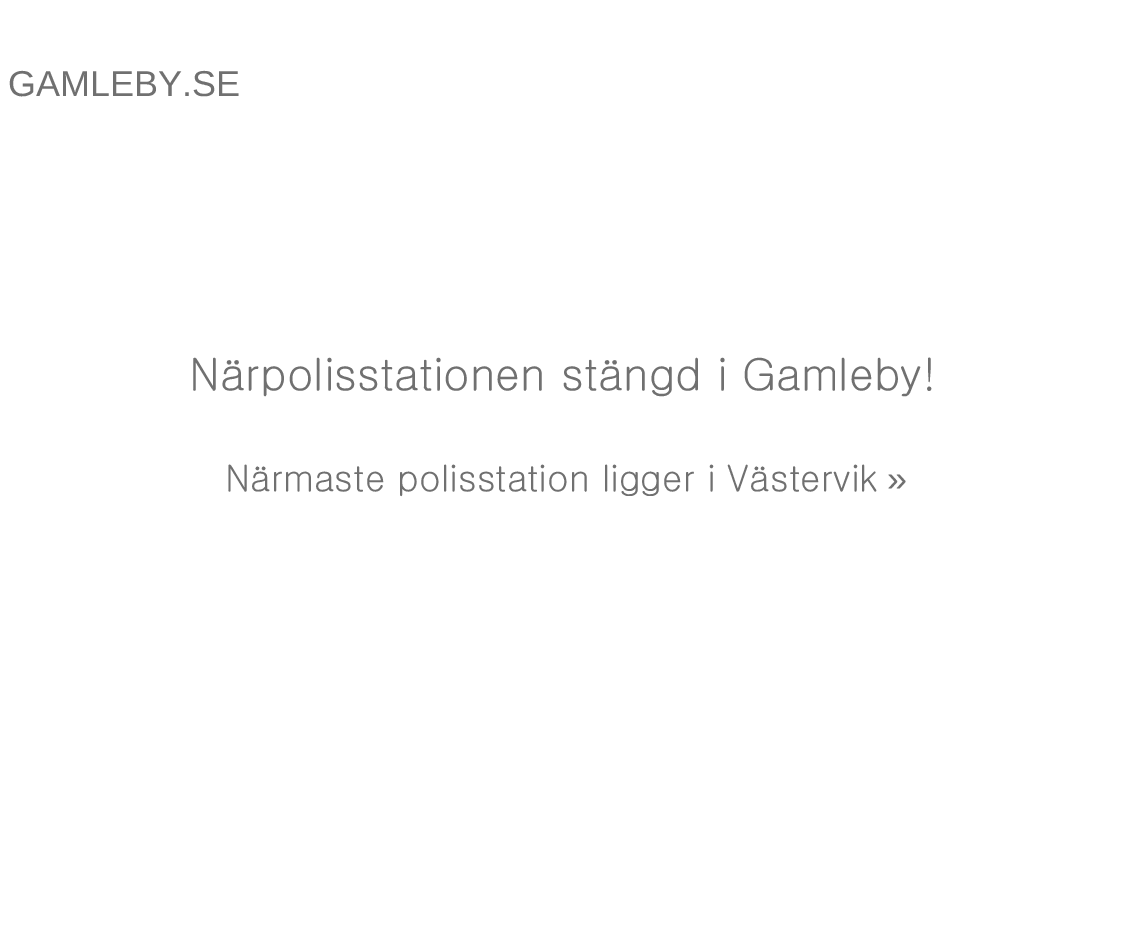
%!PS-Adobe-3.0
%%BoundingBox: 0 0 1125 950
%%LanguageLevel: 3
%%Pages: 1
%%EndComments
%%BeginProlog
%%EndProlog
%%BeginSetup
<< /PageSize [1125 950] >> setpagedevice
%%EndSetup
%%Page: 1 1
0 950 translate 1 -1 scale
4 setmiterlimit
1 setgray
0 0 1125 950 rectfill
/LiberationSans-Regular [36 0 0 -36 0 0] selectfont
0.439 setgray
8 96 moveto (GAMLEBY.SE) show
/Gulim-Regular [44 0 0 -44 0 0] selectfont
189 390 moveto (Närpolisstationen stängd i Gamleby!) show
/Gulim-Regular [36 0 0 -36 0 0] selectfont
225 491 moveto (Närmaste polisstation ligger i Västervik) show
/LiberationSans-Regular [36 0 0 -36 0 0] selectfont
887 491 moveto (») show
showpage
%%EOF
